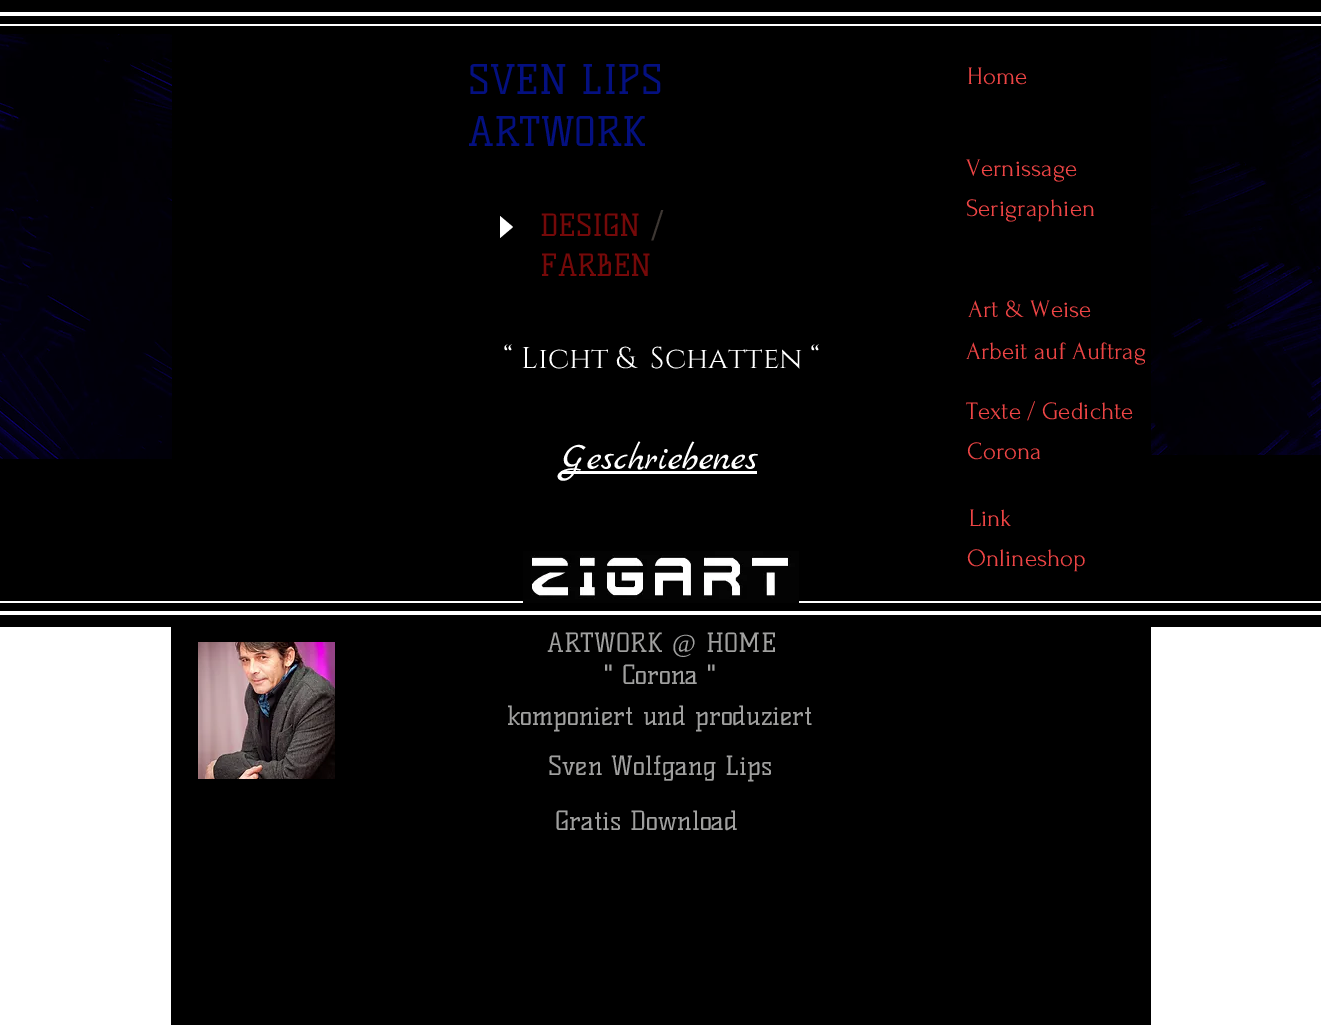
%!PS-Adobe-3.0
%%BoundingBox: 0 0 1321 1025
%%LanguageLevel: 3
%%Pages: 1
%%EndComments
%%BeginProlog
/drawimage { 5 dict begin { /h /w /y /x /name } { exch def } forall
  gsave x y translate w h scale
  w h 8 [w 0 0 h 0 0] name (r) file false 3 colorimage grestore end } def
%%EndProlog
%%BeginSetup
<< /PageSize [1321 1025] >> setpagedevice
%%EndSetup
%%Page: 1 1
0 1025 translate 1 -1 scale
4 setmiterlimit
1 setgray
0 0 1321 1025 rectfill
0 setgray
0 0 1321 627 rectfill
1 setgray
0 12 1321 4 rectfill
0 611 1321 4 rectfill
0 24 1321 2 rectfill
0 601 1321 2 rectfill
(images/1.raw) 0 34 172 425 drawimage
(images/2.raw) 1151 30 170 425 drawimage
newpath 500 238 moveto 500 216 lineto 513 227 lineto closepath fill
561 471 196 3 rectfill
(images/3.raw) 523 551 276 52 drawimage
0 setgray
171 627 980 398 rectfill
(images/4.raw) 198 642 137 137 drawimage
/KellySlab-Regular [40 0 0 -40 0 0] selectfont
0.016 0.063 0.502 setrgbcolor
468 94 moveto (SVEN LIPS) show
468 146 moveto (ARTWORK) show
/Forum-Regular [25 0 0 -25 0 0] selectfont
0.929 0.271 0.271 setrgbcolor
967 84 moveto (Home) show
966 176 moveto (Vernissage) show
/KellySlab-Regular [30 0 0 -30 0 0] selectfont
0.459 0.035 0.035 setrgbcolor
540 236 moveto (DESIGN) show
0.239 0.216 0.2 setrgbcolor
651 236 moveto (/) show
0.459 0.035 0.035 setrgbcolor
540 276 moveto (FARBEN) show
/Forum-Regular [25 0 0 -25 0 0] selectfont
0.929 0.271 0.271 setrgbcolor
966 216 moveto (Serigraphien) show
968 317 moveto (Art & Weise) show
/Cinzel-Regular [30 0 0 -30 0 0] selectfont
1 setgray
503 368 moveto (“ Licht &  Schatten “) show
/Forum-Regular [25 0 0 -25 0 0] selectfont
0.929 0.271 0.271 setrgbcolor
966 359 moveto (Arbeit auf Auftrag) show
966 419 moveto (Texte / Gedichte) show
/MarckScript-Regular [38 0 0 -38 0 0] selectfont
1 setgray
561 469 moveto (Geschriebenes) show
/Forum-Regular [25 0 0 -25 0 0] selectfont
0.929 0.271 0.271 setrgbcolor
967 459 moveto (Corona) show
969 526 moveto (Link) show
967 566 moveto (Onlineshop) show
/KellySlab-Regular [26 0 0 -26 0 0] selectfont
0.627 0.627 0.624 setrgbcolor
547 652 moveto (ARTWORK) show
/LiberationSerif-Regular [26 0 0 -26 0 0] selectfont
672 652 moveto (@) show
/KellySlab-Regular [26 0 0 -26 0 0] selectfont
706 652 moveto (HOME) show
604 684 moveto (" Corona ") show
507 725 moveto (komponiert und produziert) show
548 775 moveto (Sven Wolfgang Lips) show
555 830 moveto (Gratis Download) show
showpage
%%EOF
